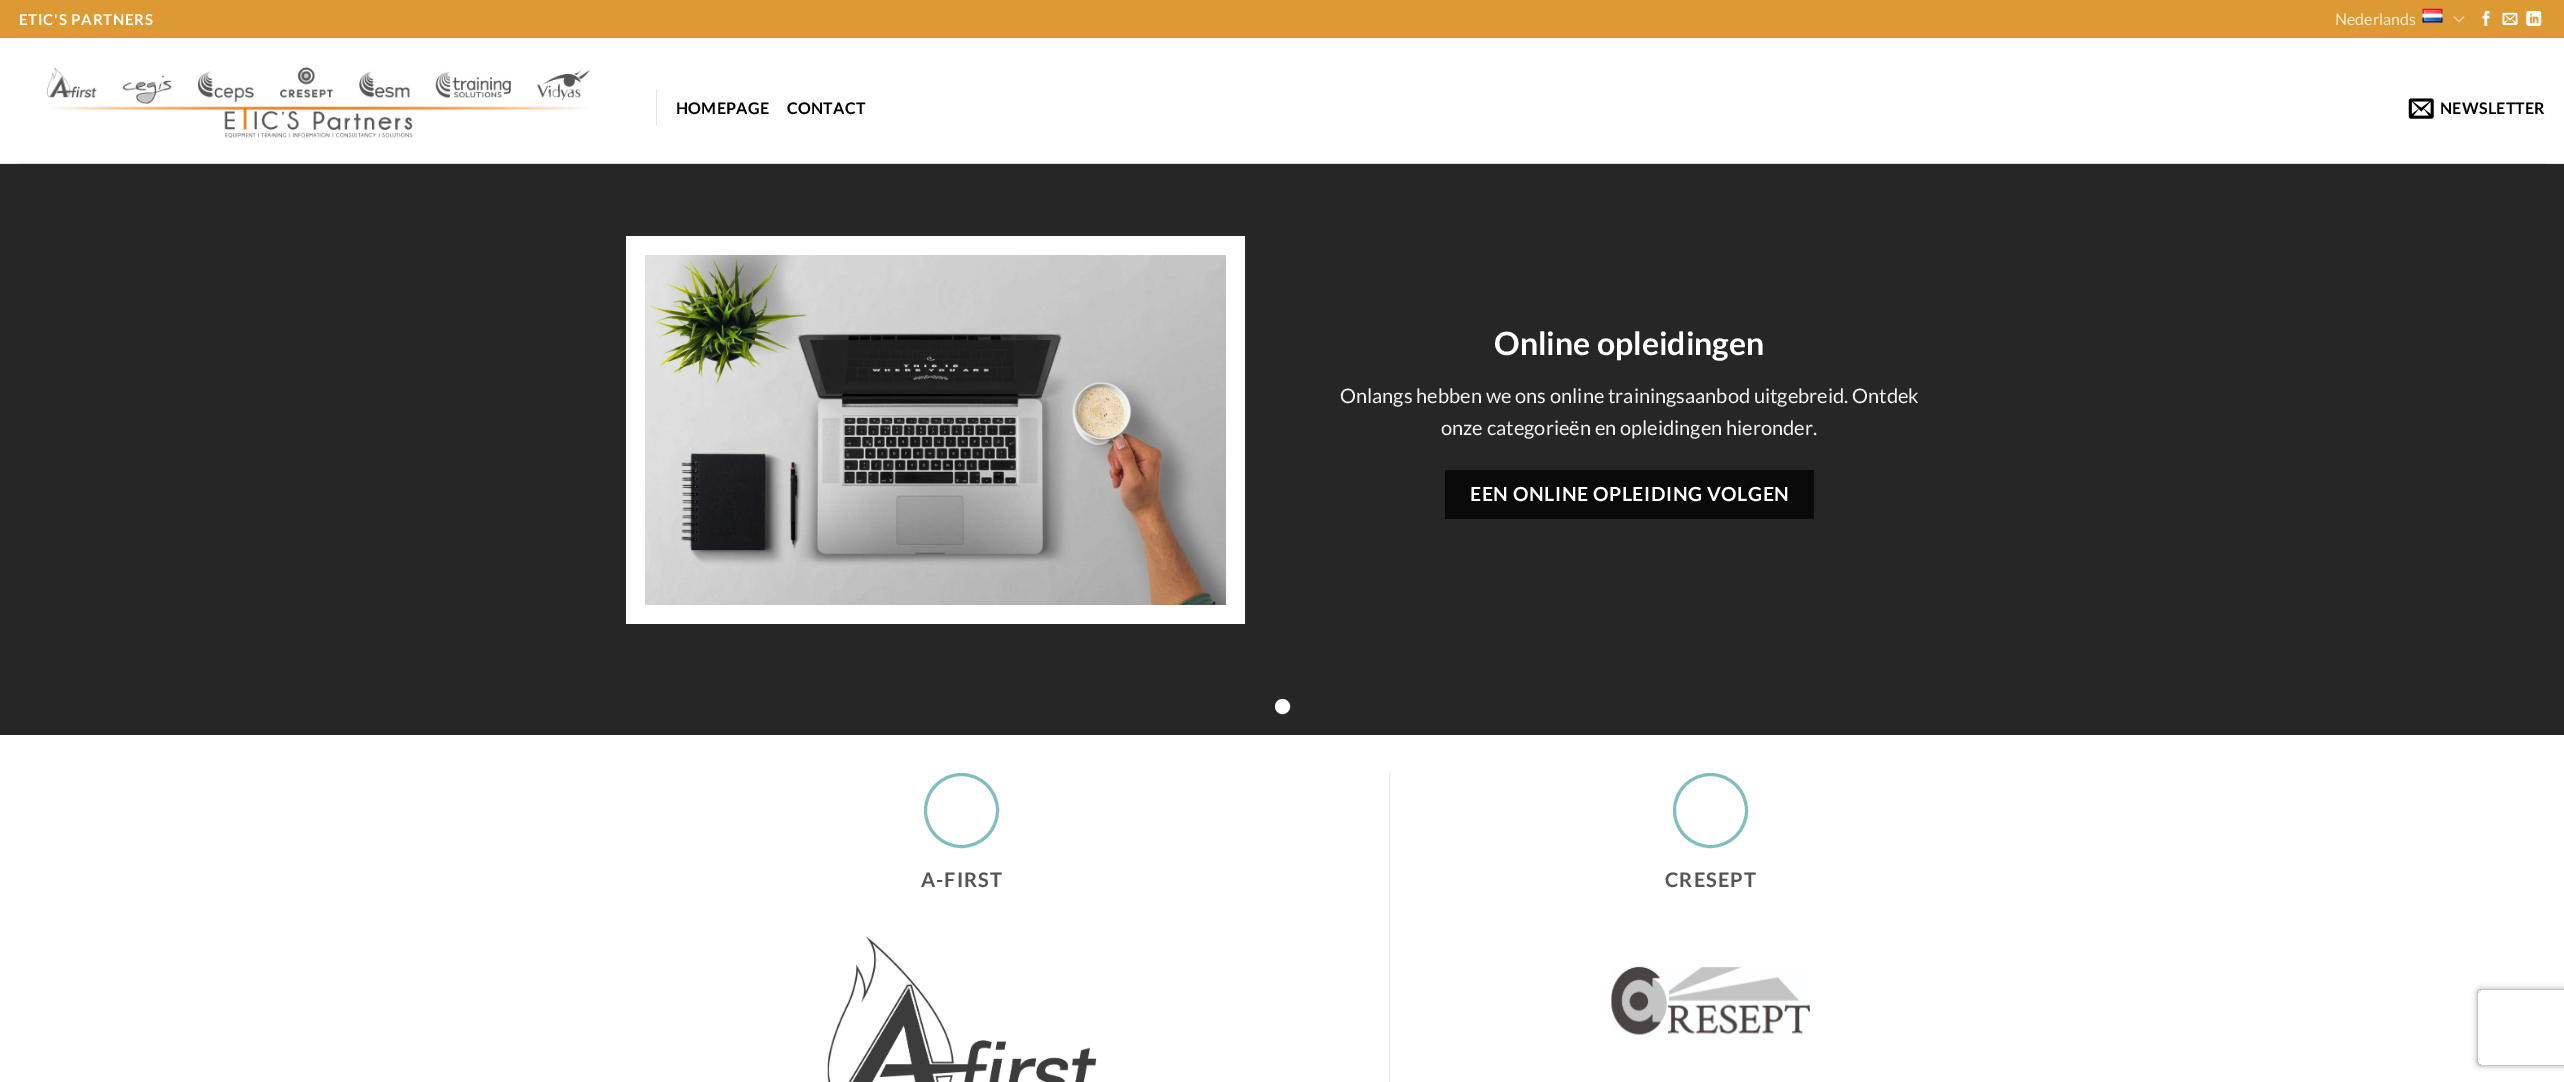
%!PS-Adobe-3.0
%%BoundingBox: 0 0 2564 1082
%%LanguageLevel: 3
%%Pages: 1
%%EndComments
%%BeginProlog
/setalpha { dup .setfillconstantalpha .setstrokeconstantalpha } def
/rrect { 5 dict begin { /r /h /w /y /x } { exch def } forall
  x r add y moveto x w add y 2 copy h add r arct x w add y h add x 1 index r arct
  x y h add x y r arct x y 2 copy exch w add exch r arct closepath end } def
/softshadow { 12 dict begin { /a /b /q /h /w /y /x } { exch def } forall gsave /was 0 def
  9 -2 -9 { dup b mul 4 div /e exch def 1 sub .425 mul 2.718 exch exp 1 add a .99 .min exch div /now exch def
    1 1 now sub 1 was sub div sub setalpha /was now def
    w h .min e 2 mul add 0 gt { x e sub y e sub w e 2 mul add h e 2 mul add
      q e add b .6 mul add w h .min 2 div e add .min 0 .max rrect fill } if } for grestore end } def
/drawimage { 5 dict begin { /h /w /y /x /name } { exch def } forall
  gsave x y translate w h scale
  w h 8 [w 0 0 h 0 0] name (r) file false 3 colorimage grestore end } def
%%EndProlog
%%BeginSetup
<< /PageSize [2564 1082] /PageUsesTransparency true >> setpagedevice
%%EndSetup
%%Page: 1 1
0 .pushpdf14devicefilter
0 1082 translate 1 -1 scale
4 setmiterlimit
1 setgray
0 0 2564 1082 rectfill
0.867 0.6 0.2 setrgbcolor
0 0 2564 38 rectfill
(images/1.raw) 2422 8 21 15 drawimage
(images/2.raw) 2453 16 12 7 drawimage
(images/3.raw) 2482 10 8 16 drawimage
(images/4.raw) 2502 12 16 13 drawimage
(images/5.raw) 2526 10 16 16 drawimage
(images/6.raw) 46 67 545 71 drawimage
0.902 setgray
656 89 1 37 rectfill
(images/7.raw) 2408 98 26 21 drawimage
0.922 setgray
0 163 2564 1 rectfill
0.875 setgray
19 163 2527 1 rectfill
0.149 setgray
0 164 2564 571 rectfill
1 setgray
626 236 619 388 rectfill
(images/8.raw) 645 255 582 350 drawimage
0.039 setgray
1445 470 369 49 rectfill
1 setgray
newpath 1282.5 706.5 5.5 0 360 arc closepath gsave fill grestore
4 setlinewidth
stroke
0.502 0.749 0.745 setrgbcolor
3 setlinewidth
newpath 961.5 810.5 36 0 360 arc closepath stroke
(images/9.raw) 827 936 270 146 drawimage
0.925 setgray
1389 773 1 309 rectfill
0.502 0.749 0.745 setrgbcolor
newpath 1710.5 810.5 36 0 360 arc closepath stroke
(images/10.raw) 1611 966 199 69 drawimage
gsave
newpath 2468 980 moveto 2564 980 lineto 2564 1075 lineto 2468 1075 lineto closepath 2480.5 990 moveto 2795.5 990 lineto 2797 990 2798 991 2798 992.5 curveto 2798 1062.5 lineto 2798 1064 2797 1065 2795.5 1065 curveto 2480.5 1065 lineto 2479 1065 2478 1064 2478 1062.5 curveto 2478 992.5 lineto 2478 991 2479 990 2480.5 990 curveto closepath eoclip newpath
0.502 setgray
2478 990 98 75 2.5 3 1 softshadow
grestore
/Lato-Bold [15 0 0 -15 0 0] selectfont
1 setgray
19 25 moveto 0.75 0 (ETIC'S PARTNERS) ashow
/Lato-Regular [16 0 0 -16 0 0] selectfont
0.973 0.922 0.839 setrgbcolor
2335 25 moveto (Nederlands) show
/Lato-Bold [16 0 0 -16 0 0] selectfont
0 setgray
676 114 moveto 0.25 0 (HOMEPAGE) ashow
787 114 moveto 0.25 0 (CONTACT) ashow
2440 114 moveto 0.25 0 (NEWSLETTER) ashow
/Lato-Bold [32 0 0 -32 0 0] selectfont
1 setgray
1494 355 moveto (Online opleidingen) show
/Lato-Regular [20 0 0 -20 0 0] selectfont
0.945 setgray
1340 403 moveto (Onlangs hebben we ons online trainingsaanbod uitgebreid. Ontdek) show
1441 435 moveto (onze categorieën en opleidingen hieronder.) show
/Lato-Bold [19.4 0 0 -19.4 0 0] selectfont
1 setgray
1470 501 moveto 0.6 0 (EEN ONLINE OPLEIDING VOLGEN) ashow
/Lato-Bold [20 0 0 -20 0 0] selectfont
0.333 setgray
921 887 moveto 1 0 (A-FIRST) ashow
1665 887 moveto 1 0 (CRESEPT) ashow
.poppdf14devicefilter showpage
%%EOF
